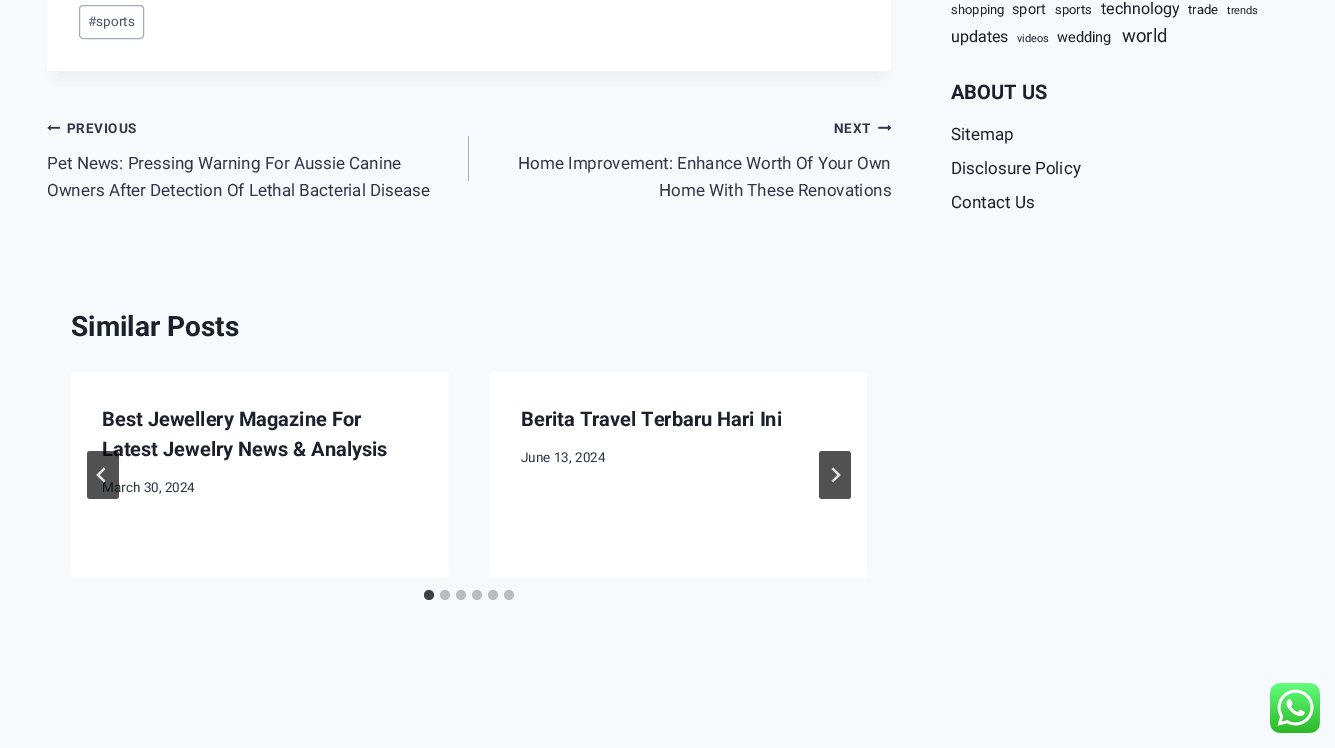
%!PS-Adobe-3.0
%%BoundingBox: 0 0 1335 748
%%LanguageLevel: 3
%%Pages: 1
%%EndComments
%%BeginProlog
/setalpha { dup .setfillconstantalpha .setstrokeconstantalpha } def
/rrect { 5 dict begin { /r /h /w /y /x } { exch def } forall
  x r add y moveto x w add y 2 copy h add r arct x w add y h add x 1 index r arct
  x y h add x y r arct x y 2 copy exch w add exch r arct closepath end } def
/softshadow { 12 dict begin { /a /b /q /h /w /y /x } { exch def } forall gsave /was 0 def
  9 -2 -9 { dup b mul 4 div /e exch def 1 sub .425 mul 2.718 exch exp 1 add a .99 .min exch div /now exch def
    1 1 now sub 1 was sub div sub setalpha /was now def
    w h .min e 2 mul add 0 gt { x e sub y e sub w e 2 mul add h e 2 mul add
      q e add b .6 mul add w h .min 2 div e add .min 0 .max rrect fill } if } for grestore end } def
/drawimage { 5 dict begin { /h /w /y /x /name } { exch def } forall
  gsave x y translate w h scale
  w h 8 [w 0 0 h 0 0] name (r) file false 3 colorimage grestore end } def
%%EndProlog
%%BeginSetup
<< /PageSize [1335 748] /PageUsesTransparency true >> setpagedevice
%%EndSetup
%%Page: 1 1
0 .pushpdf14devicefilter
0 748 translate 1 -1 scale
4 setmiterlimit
0.969 0.98 0.988 setrgbcolor
0 0 1335 748 rectfill
0 setgray
57 -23 824 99 0 7.5 0.05 softshadow
1 setgray
47 -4 844 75 4 rrect fill
0.627 0.682 0.753 setrgbcolor
79.5 5.5 64 33 3.5 rrect stroke
(images/1.raw) 47 125 13 6 drawimage
468 136 1 45 rectfill
(images/2.raw) 878 124 13 7 drawimage
1 setgray
71 372 378 206 4 rrect fill
489 372 378 206 4 rrect fill
0.318 setgray
819 451 32 48 3 rrect fill
(images/4.raw) 831 467 10 16 drawimage
0.243 0.247 0.247 setrgbcolor
newpath 429 595 5 0 360 arc closepath fill
0.725 0.737 0.741 setrgbcolor
newpath 445 595 5 0 360 arc closepath fill
newpath 461 595 5 0 360 arc closepath fill
newpath 477 595 5 0 360 arc closepath fill
newpath 493 595 5 0 360 arc closepath fill
newpath 509 595 5 0 360 arc closepath fill
(images/5.raw) 1270 683 50 50 drawimage
/Roboto-Regular [13.5 0 0 -13.5 0 0] selectfont
0.29 0.333 0.408 setrgbcolor
88 26 moveto (#sports) show
/Roboto-Bold [13.5 0 0 -13.5 0 0] selectfont
0.176 0.216 0.282 setrgbcolor
67 133 moveto 0.75 0 (PREVIOUS) ashow
/Roboto-Regular [17 0 0 -17 0 0] selectfont
47 169 moveto (Pet News: Pressing Warning For Aussie Canine) show
47 196 moveto (Owners After Detection Of Lethal Bacterial Disease) show
/Roboto-Bold [13.5 0 0 -13.5 0 0] selectfont
834 133 moveto 0.75 0 (NEXT) ashow
/Roboto-Regular [17 0 0 -17 0 0] selectfont
518 169 moveto (Home Improvement: Enhance Worth Of Your Own) show
659 196 moveto (Home With These Renovations) show
/Roboto-Bold [28 0 0 -28 0 0] selectfont
0.102 0.125 0.173 setrgbcolor
71 336 moveto (Similar Posts) show
/Roboto-Bold [20 0 0 -20 0 0] selectfont
102 426 moveto (Best Jewellery Magazine For) show
102 456 moveto (Latest Jewelry News & Analysis) show
/Roboto-Regular [13.5 0 0 -13.5 0 0] selectfont
0.176 0.216 0.282 setrgbcolor
102 492 moveto (March 30, 2024) show
/Roboto-Bold [20 0 0 -20 0 0] selectfont
0.102 0.125 0.173 setrgbcolor
521 426 moveto (Berita Travel Terbaru Hari Ini) show
/Roboto-Regular [13.5 0 0 -13.5 0 0] selectfont
0.176 0.216 0.282 setrgbcolor
521 462 moveto (June 13, 2024) show
0.68 setalpha
0 setgray
87 451 32 48 3 rrect fill
1 setalpha
(images/3.raw) 96 467 10 16 drawimage
/Roboto-Regular [13 0 0 -13 0 0] selectfont
0.102 0.125 0.173 setrgbcolor
951 14 moveto (shopping) show
/Roboto-Regular [14.5 0 0 -14.5 0 0] selectfont
1012 14 moveto (sport) show
/Roboto-Regular [13 0 0 -13 0 0] selectfont
1055 14 moveto (sports) show
/Roboto-Regular [16 0 0 -16 0 0] selectfont
1101 14 moveto (technology) show
/Roboto-Regular [13 0 0 -13 0 0] selectfont
1188 14 moveto (trade) show
/Roboto-Regular [11 0 0 -11 0 0] selectfont
1227 14 moveto (trends) show
/Roboto-Regular [16 0 0 -16 0 0] selectfont
951 42 moveto (updates) show
/Roboto-Regular [11 0 0 -11 0 0] selectfont
1017 42 moveto (videos) show
/Roboto-Regular [14.5 0 0 -14.5 0 0] selectfont
1057 42 moveto (wedding) show
/Roboto-Regular [18.5 0 0 -18.5 0 0] selectfont
1122 42 moveto (world) show
/Roboto-Bold [20 0 0 -20 0 0] selectfont
951 99 moveto (ABOUT US) show
/Roboto-Regular [17 0 0 -17 0 0] selectfont
951 140 moveto (Sitemap) show
951 174 moveto (Disclosure Policy) show
951 208 moveto (Contact Us) show
.poppdf14devicefilter showpage
%%EOF
